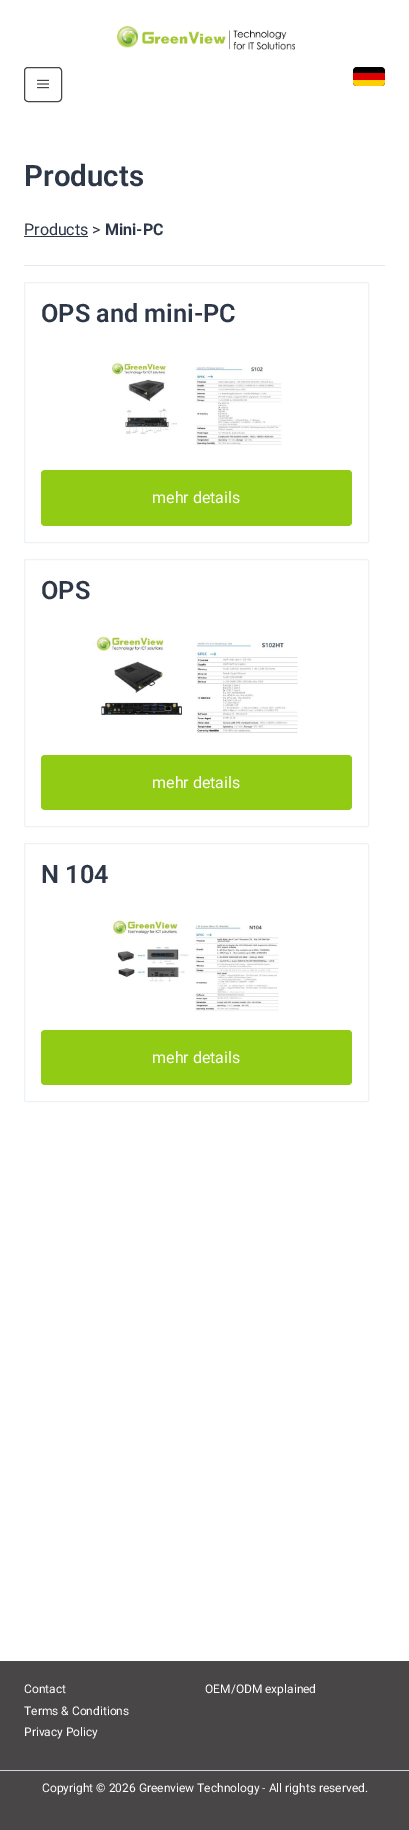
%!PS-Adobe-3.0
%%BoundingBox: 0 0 409 1830
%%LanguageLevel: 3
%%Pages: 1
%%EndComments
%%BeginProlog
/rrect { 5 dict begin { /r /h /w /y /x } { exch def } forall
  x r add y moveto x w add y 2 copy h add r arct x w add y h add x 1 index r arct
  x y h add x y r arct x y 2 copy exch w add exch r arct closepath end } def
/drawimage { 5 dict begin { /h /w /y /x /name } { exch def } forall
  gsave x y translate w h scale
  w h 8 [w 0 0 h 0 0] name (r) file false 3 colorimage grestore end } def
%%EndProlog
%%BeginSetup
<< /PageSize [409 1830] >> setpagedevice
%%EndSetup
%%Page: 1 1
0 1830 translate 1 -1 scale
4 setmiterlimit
1 setgray
0 0 409 1830 rectfill
(images/1.raw) 117 25 178 25 drawimage
0.282 0.275 0.275 setrgbcolor
24.5 67.5 37 34 3.5 rrect stroke
(images/2.raw) 37 79 12 10 drawimage
0 setgray
353 67 32 19 4 rrect fill
0.867 0 0 setrgbcolor
newpath 353 73 moveto 385 73 lineto 385 82 lineto 385 84 383 86 381 86 curveto 357 86 lineto 355 86 353 84 353 82 curveto closepath fill
1 0.808 0 setrgbcolor
newpath 353 80 moveto 385 80 lineto 385 82 lineto 385 84 383 86 381 86 curveto 357 86 lineto 355 86 353 84 353 82 curveto closepath fill
0.176 0.216 0.282 setrgbcolor
24 236 64 1 rectfill
0.886 0.91 0.941 setrgbcolor
24 265 361 1 rectfill
0.929 0.949 0.969 setrgbcolor
24.5 282.5 344 260 1.5 rrect stroke
(images/3.raw) 111 362 171 84 drawimage
0.573 0.796 0.075 setrgbcolor
41 470 311 56 4 rrect fill
0.929 0.949 0.969 setrgbcolor
24.5 559.5 344 267 1.5 rrect stroke
(images/4.raw) 92 635 206 98 drawimage
0.573 0.796 0.075 setrgbcolor
41 755 311 55 4 rrect fill
0.929 0.949 0.969 setrgbcolor
24.5 843.5 344 258 1.5 rrect stroke
(images/5.raw) 111 920 168 91 drawimage
0.573 0.796 0.075 setrgbcolor
41 1030 311 55 4 rrect fill
0.282 0.275 0.275 setrgbcolor
0 1661 409 169 rectfill
0.796 0.835 0.878 setrgbcolor
0 1770 409 1 rectfill
/Roboto-SemiBold [29.5 0 0 -29.5 0 0] selectfont
0.176 0.216 0.282 setrgbcolor
24 186 moveto (Products) show
/Roboto-Regular [16 0 0 -16 0 0] selectfont
24 235 moveto (Products >) show
/Roboto-Bold [16 0 0 -16 0 0] selectfont
105 235 moveto (Mini-PC) show
/Roboto-SemiBold [25.25 0 0 -25.25 0 0] selectfont
41 322 moveto (OPS and mini-PC) show
/Roboto-Regular [16 0 0 -16 0 0] selectfont
1 setgray
152 503 moveto (mehr details) show
/Roboto-SemiBold [25.25 0 0 -25.25 0 0] selectfont
0.176 0.216 0.282 setrgbcolor
41 599 moveto (OPS) show
/Roboto-Regular [16 0 0 -16 0 0] selectfont
1 setgray
152 788 moveto (mehr details) show
/Roboto-SemiBold [25.25 0 0 -25.25 0 0] selectfont
0.176 0.216 0.282 setrgbcolor
41 883 moveto (N 104) show
/Roboto-Regular [16 0 0 -16 0 0] selectfont
1 setgray
152 1063 moveto (mehr details) show
/Roboto-Regular [12 0 0 -12 0 0] selectfont
24 1693 moveto (Contact) show
205 1693 moveto (OEM/ODM explained) show
24 1715 moveto (Terms & Conditions) show
24 1736 moveto (Privacy Policy) show
42 1792 moveto (Copyright © 2026 Greenview Technology - All rights reserved.) show
showpage
%%EOF
